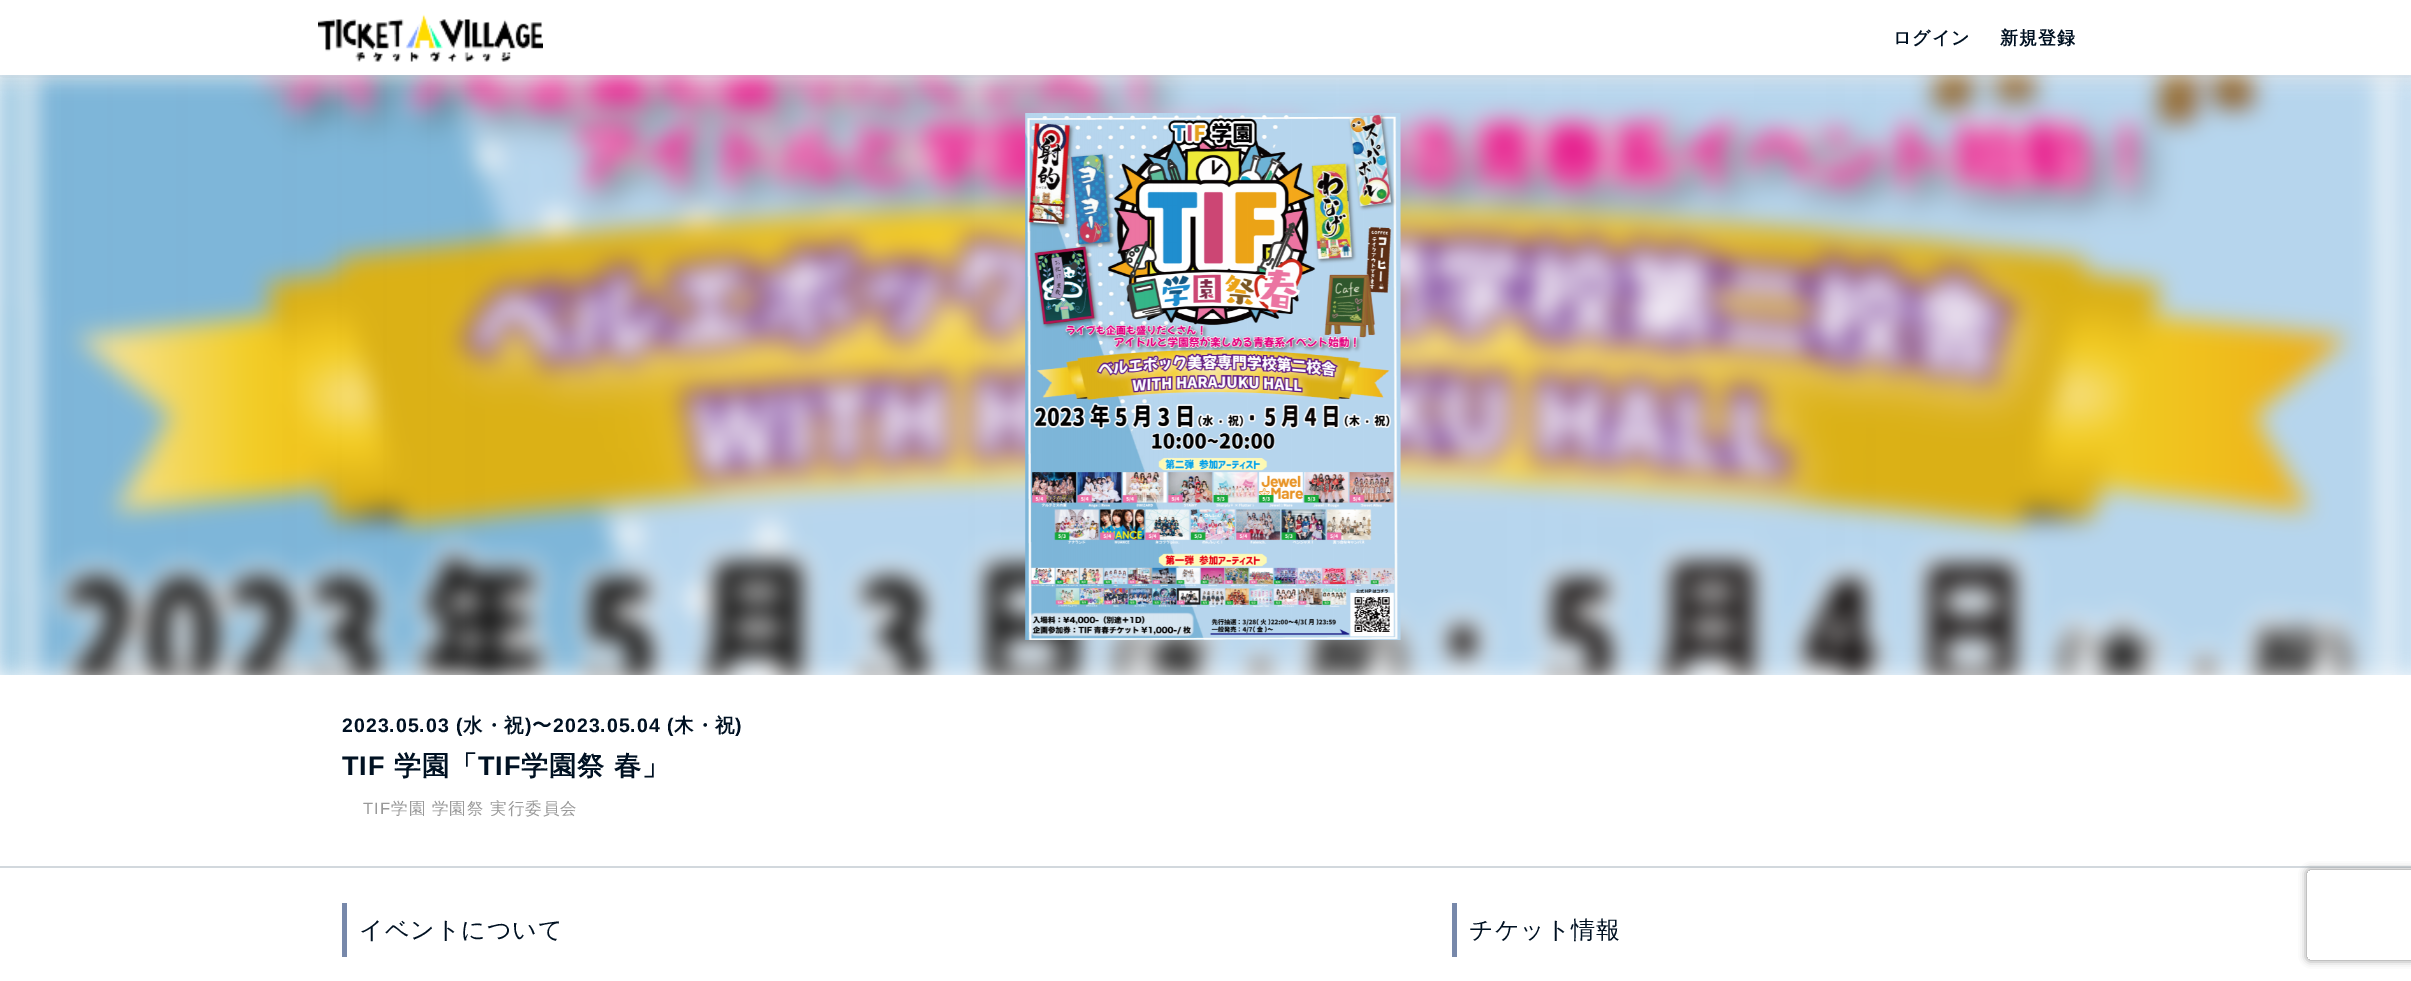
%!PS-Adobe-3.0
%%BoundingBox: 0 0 2411 981
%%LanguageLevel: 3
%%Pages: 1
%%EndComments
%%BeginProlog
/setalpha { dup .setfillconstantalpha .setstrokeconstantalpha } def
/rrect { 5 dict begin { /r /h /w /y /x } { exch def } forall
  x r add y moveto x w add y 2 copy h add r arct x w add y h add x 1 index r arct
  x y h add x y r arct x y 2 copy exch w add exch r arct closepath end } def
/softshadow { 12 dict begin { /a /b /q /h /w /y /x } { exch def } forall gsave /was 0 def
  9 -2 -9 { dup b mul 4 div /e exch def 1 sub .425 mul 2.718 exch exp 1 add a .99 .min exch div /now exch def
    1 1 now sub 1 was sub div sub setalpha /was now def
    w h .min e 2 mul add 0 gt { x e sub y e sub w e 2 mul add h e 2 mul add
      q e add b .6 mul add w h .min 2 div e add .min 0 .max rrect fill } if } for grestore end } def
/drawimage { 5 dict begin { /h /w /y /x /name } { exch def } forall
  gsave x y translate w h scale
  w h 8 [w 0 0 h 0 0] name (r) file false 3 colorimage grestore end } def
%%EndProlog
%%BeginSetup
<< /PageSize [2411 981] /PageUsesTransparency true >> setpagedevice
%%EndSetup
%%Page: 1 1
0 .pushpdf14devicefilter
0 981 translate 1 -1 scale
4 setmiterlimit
1 setgray
0 0 2411 981 rectfill
(images/2.raw) 0 75 2411 600 drawimage
0 0.067 0.133 setrgbcolor
0 -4 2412 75 0 9 0.2 softshadow
1 setgray
0 0 2411 75 rectfill
(images/1.raw) 318 14 225 48 drawimage
(images/3.raw) 1025 113 376 527 drawimage
0.824 0.847 0.867 setrgbcolor
0 866 2411 2 rectfill
0.467 0.533 0.667 setrgbcolor
342 903 5 54 rectfill
1452 903 5 54 rectfill
gsave
newpath 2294 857 moveto 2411 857 lineto 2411 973 lineto 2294 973 lineto closepath 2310 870 moveto 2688 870 lineto 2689.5 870 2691 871.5 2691 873 curveto 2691 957 lineto 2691 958.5 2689.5 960 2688 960 curveto 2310 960 lineto 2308.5 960 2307 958.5 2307 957 curveto 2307 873 lineto 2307 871.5 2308.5 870 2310 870 curveto closepath eoclip newpath
0.502 setgray
2307 870 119 90 3 4 1 softshadow
grestore
/WenQuanYiZenHei-Bold [18 0 0 -18 0 0] selectfont
0 0.067 0.133 setrgbcolor
1893 44 moveto 1 0 (ログイン) ashow
2000 44 moveto 1 0 (新規登録) ashow
/LiberationSans-Bold [19.5 0 0 -19.5 0 0] selectfont
342 732 moveto 1 0 (2023.05.03 \() ashow
/WenQuanYiZenHei-Bold [19.5 0 0 -19.5 0 0] selectfont
463 732 moveto 1 0 (水・祝) ashow
/LiberationSans-Bold [19.5 0 0 -19.5 0 0] selectfont
525 732 moveto 1 0 (\)) ashow
/WenQuanYiZenHei-Bold [19.5 0 0 -19.5 0 0] selectfont
532 732 moveto 1 0 (〜) ashow
/LiberationSans-Bold [19.5 0 0 -19.5 0 0] selectfont
553 732 moveto 1 0 (2023.05.04 \() ashow
/WenQuanYiZenHei-Bold [19.5 0 0 -19.5 0 0] selectfont
674 732 moveto 1 0 (木・祝) ashow
/LiberationSans-Bold [19.5 0 0 -19.5 0 0] selectfont
735 732 moveto 1 0 (\)) ashow
/LiberationSans-Bold [27 0 0 -27 0 0] selectfont
342 775 moveto 1 0 (TIF) ashow
/WenQuanYiZenHei-Bold [27 0 0 -27 0 0] selectfont
394 775 moveto 1 0 (学園「) ashow
/LiberationSans-Bold [27 0 0 -27 0 0] selectfont
478 775 moveto 1 0 (TIF) ashow
/WenQuanYiZenHei-Bold [27 0 0 -27 0 0] selectfont
521 775 moveto 1 0 (学園祭 春」) ashow
/LiberationSans-Regular [16.5 0 0 -16.5 0 0] selectfont
0.6 setgray
363 814 moveto 1 0 (TIF) ashow
/WenQuanYiZenHei-Medium [16.5 0 0 -16.5 0 0] selectfont
391 814 moveto 1 0 (学園 学園祭 実行委員会) ashow
/WenQuanYiZenHei-Medium [24 0 0 -24 0 0] selectfont
0 0.067 0.133 setrgbcolor
359 938 moveto 1 0 (イベントについて) ashow
1469 938 moveto 1 0 (チケット情報) ashow
.poppdf14devicefilter showpage
%%EOF
